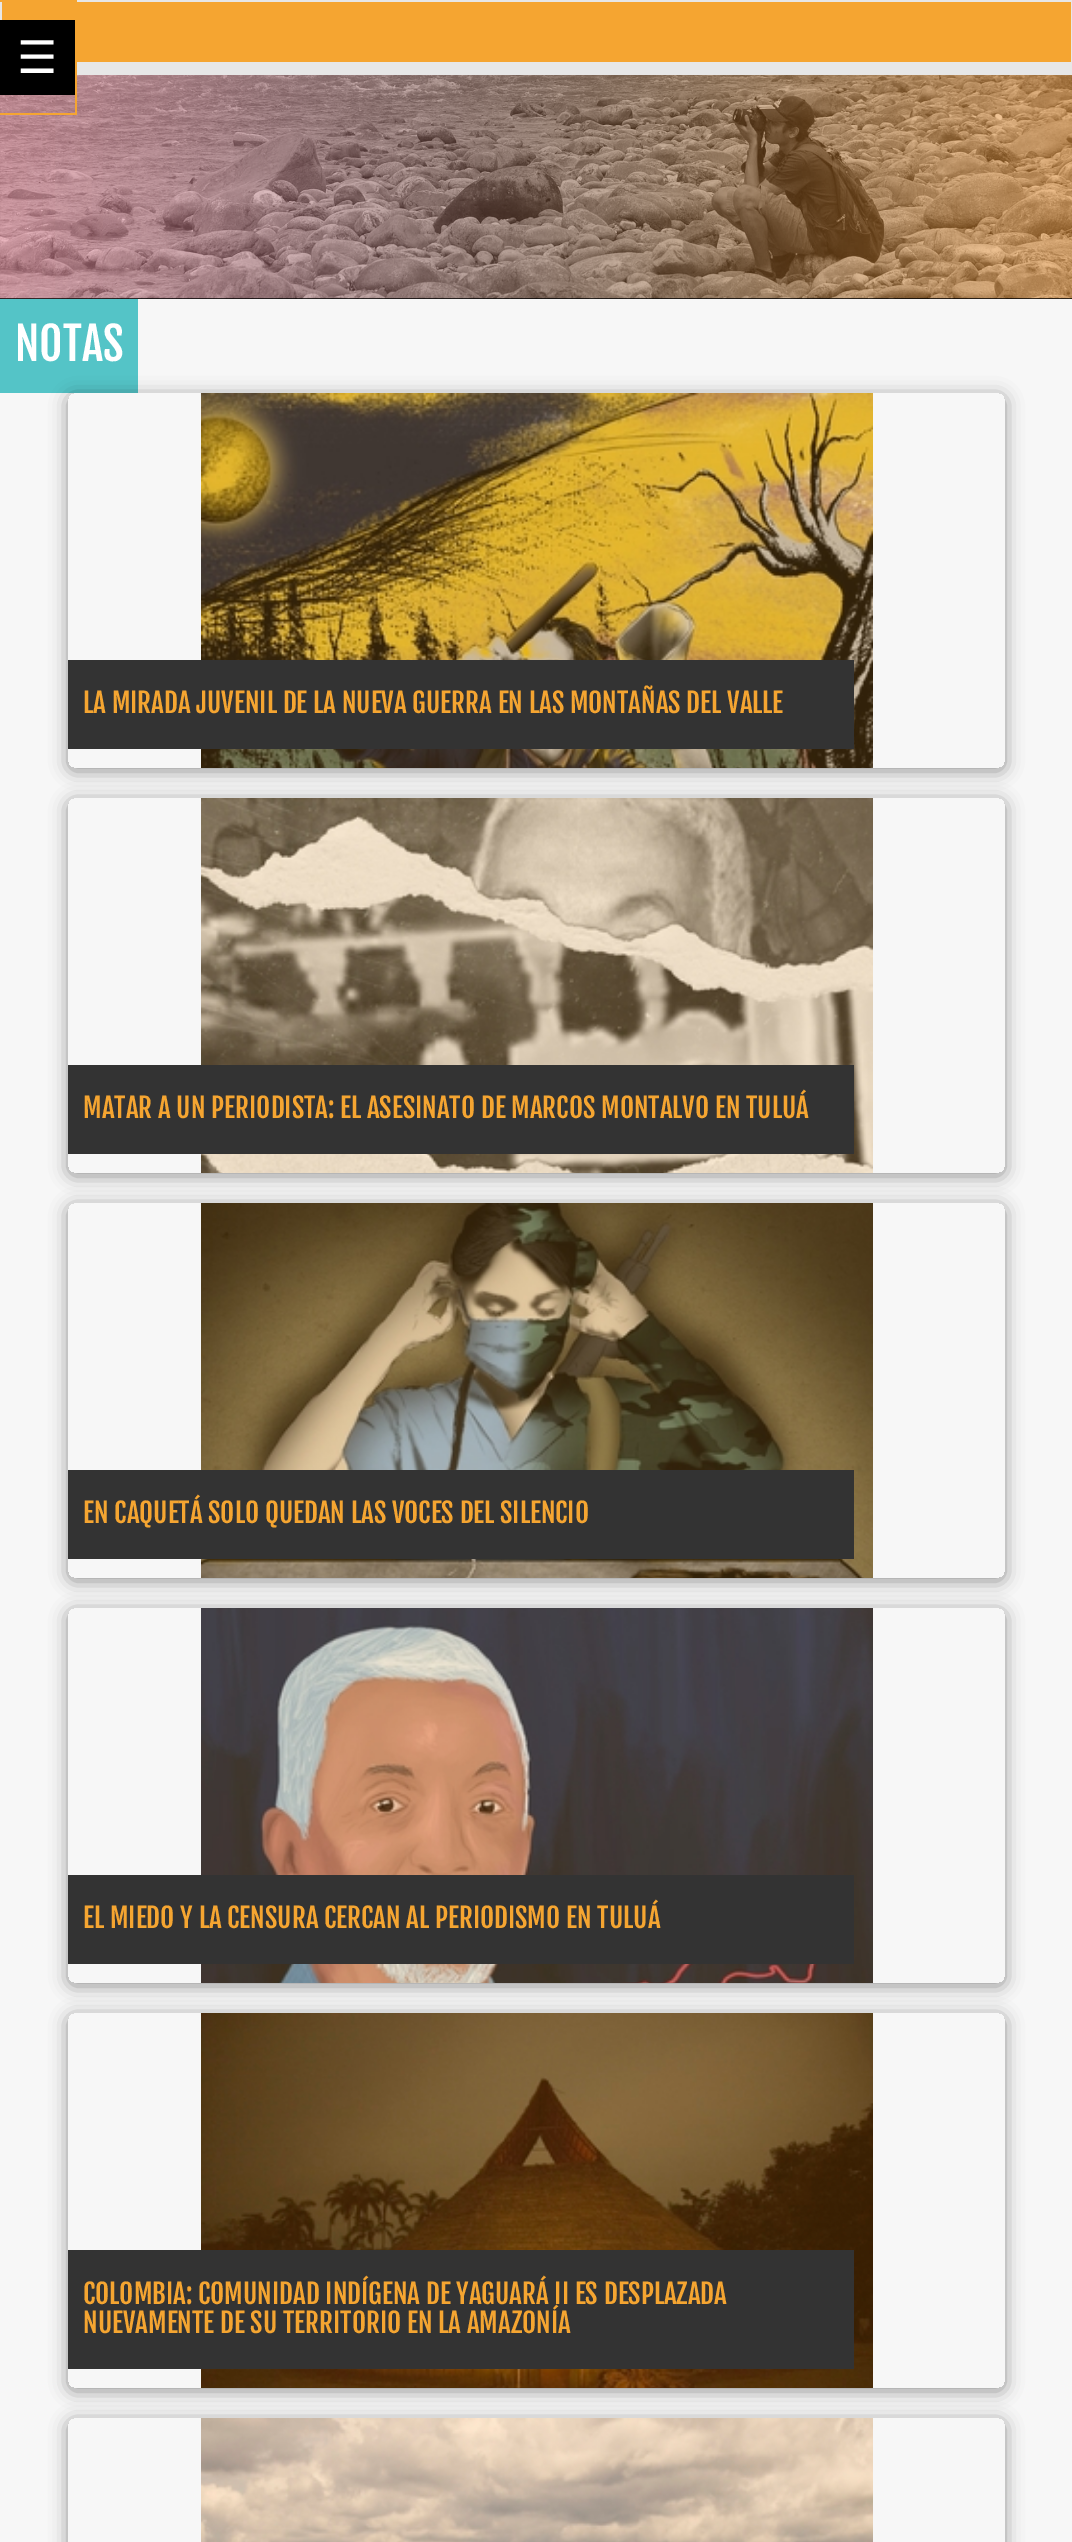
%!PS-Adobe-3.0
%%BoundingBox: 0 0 1072 2542
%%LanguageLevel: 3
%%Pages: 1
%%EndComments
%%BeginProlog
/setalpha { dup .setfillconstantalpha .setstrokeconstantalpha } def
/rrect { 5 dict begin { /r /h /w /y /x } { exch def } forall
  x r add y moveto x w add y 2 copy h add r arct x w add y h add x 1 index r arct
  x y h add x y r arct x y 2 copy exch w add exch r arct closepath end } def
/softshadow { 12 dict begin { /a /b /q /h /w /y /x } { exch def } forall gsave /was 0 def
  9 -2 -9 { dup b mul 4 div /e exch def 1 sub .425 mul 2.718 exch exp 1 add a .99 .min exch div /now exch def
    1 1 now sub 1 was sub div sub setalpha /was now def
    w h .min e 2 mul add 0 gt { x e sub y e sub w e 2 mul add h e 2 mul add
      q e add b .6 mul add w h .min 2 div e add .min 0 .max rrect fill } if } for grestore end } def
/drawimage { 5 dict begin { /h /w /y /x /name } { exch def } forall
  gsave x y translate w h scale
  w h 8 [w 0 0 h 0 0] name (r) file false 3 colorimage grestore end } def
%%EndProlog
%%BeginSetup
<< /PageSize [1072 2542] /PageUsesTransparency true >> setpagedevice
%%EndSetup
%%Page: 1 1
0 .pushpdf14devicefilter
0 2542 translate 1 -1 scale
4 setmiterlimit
0.969 setgray
0 0 1072 2542 rectfill
0.961 0.647 0.192 setrgbcolor
2 2 1069 60 rectfill
0.906 setgray
77 0 995 2 rectfill
1071 0 1 62 rectfill
77 62 995 13 rectfill
0 0 2 20 rectfill
0.961 0.647 0.192 setrgbcolor
0 0 77 2 rectfill
0 setgray
0 95 1072 204 rectfill
(images/1.raw) 0 75 1072 224 drawimage
0.961 0.647 0.192 setrgbcolor
75 62 2 52 rectfill
0 113 77 2 rectfill
0 setgray
0 20 75 75 rectfill
0.329 0.769 0.78 setrgbcolor
0 299 138 94 rectfill
gsave
newpath 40 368 moveto 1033 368 lineto 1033 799 lineto 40 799 lineto closepath 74 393 moveto 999 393 lineto 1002.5 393 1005 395.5 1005 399 curveto 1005 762 lineto 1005 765.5 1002.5 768 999 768 curveto 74 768 lineto 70.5 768 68 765.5 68 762 curveto 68 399 lineto 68 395.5 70.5 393 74 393 curveto closepath eoclip newpath
0 setgray
68 396 937 375 6 9 0.4 softshadow
grestore
(images/2.raw) 201 393 672 375 drawimage
0.2 setgray
68 660 786 89 rectfill
gsave
newpath 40 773 moveto 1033 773 lineto 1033 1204 lineto 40 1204 lineto closepath 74 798 moveto 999 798 lineto 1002.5 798 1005 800.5 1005 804 curveto 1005 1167 lineto 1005 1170.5 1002.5 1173 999 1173 curveto 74 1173 lineto 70.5 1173 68 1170.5 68 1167 curveto 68 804 lineto 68 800.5 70.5 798 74 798 curveto closepath eoclip newpath
0 setgray
68 801 937 375 6 9 0.4 softshadow
grestore
(images/3.raw) 201 798 672 375 drawimage
68 1065 786 89 rectfill
gsave
newpath 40 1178 moveto 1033 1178 lineto 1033 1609 lineto 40 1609 lineto closepath 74 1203 moveto 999 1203 lineto 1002.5 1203 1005 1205.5 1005 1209 curveto 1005 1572 lineto 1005 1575.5 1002.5 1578 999 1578 curveto 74 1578 lineto 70.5 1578 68 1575.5 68 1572 curveto 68 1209 lineto 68 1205.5 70.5 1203 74 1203 curveto closepath eoclip newpath
0 setgray
68 1206 937 375 6 9 0.4 softshadow
grestore
(images/4.raw) 201 1203 672 375 drawimage
68 1470 786 89 rectfill
gsave
newpath 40 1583 moveto 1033 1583 lineto 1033 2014 lineto 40 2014 lineto closepath 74 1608 moveto 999 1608 lineto 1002.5 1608 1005 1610.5 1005 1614 curveto 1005 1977 lineto 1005 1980.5 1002.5 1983 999 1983 curveto 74 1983 lineto 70.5 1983 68 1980.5 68 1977 curveto 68 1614 lineto 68 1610.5 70.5 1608 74 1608 curveto closepath eoclip newpath
0 setgray
68 1611 937 375 6 9 0.4 softshadow
grestore
(images/5.raw) 201 1608 672 375 drawimage
68 1875 786 89 rectfill
gsave
newpath 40 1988 moveto 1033 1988 lineto 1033 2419 lineto 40 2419 lineto closepath 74 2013 moveto 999 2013 lineto 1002.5 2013 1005 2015.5 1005 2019 curveto 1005 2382 lineto 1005 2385.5 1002.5 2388 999 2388 curveto 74 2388 lineto 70.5 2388 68 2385.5 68 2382 curveto 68 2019 lineto 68 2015.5 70.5 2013 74 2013 curveto closepath eoclip newpath
0 setgray
68 2016 937 375 6 9 0.4 softshadow
grestore
(images/6.raw) 201 2013 672 375 drawimage
68 2250 786 119 rectfill
gsave
newpath 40 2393 moveto 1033 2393 lineto 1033 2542 lineto 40 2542 lineto closepath 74 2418 moveto 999 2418 lineto 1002.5 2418 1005 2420.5 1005 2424 curveto 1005 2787 lineto 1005 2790.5 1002.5 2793 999 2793 curveto 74 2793 lineto 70.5 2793 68 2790.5 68 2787 curveto 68 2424 lineto 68 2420.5 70.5 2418 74 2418 curveto closepath eoclip newpath
0 setgray
68 2421 937 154 6 9 0.4 softshadow
grestore
(images/7.raw) 201 2418 672 124 drawimage
/DejaVuSans-Regular [45 0 0 -45 0 0] selectfont
1 setgray
17 73 moveto (☰) show
/FjallaOne-Regular [45 0 0 -45 0 0] selectfont
15 361 moveto (NOTAS) show
/FjallaOne-Regular [27 0 0 -27 0 0] selectfont
0.961 0.647 0.192 setrgbcolor
83 713 moveto (LA MIRADA JUVENIL DE LA NUEVA GUERRA EN LAS MONTAÑAS DEL VALLE) show
83 1118 moveto (MATAR A UN PERIODISTA: EL ASESINATO DE MARCOS MONTALVO EN TULUÁ) show
83 1523 moveto (EN CAQUETÁ SOLO QUEDAN LAS VOCES DEL SILENCIO) show
83 1928 moveto (EL MIEDO Y LA CENSURA CERCAN AL PERIODISMO EN TULUÁ) show
83 2304 moveto (COLOMBIA: COMUNIDAD INDÍGENA DE YAGUARÁ II ES DESPLAZADA) show
83 2333 moveto (NUEVAMENTE DE SU TERRITORIO EN LA AMAZONÍA) show
.poppdf14devicefilter showpage
%%EOF
